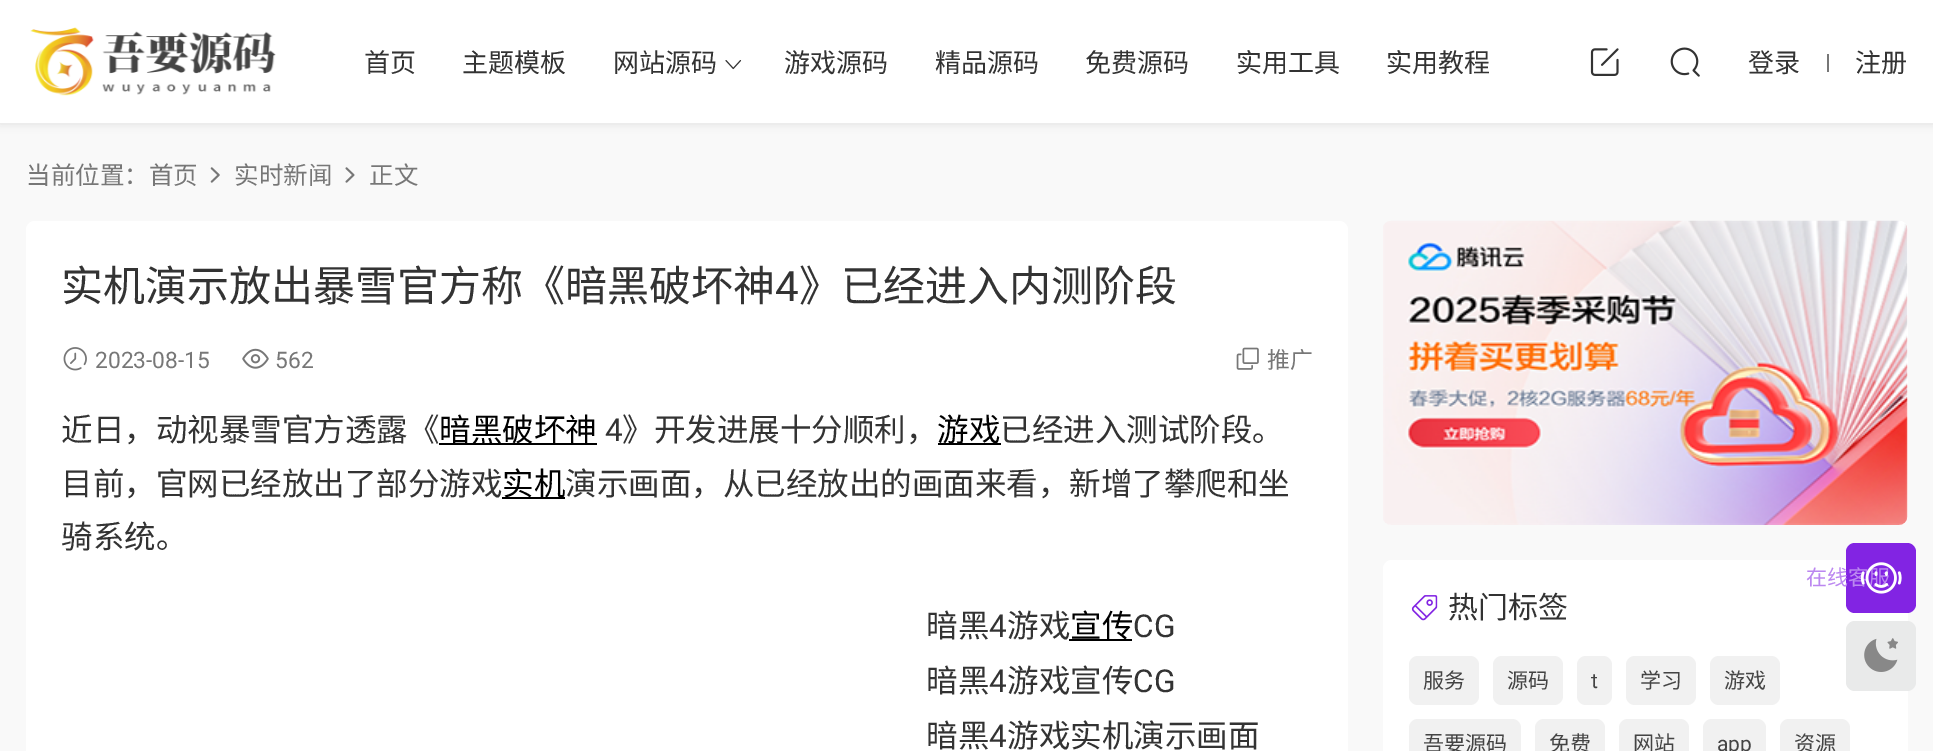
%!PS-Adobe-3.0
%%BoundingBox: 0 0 1933 751
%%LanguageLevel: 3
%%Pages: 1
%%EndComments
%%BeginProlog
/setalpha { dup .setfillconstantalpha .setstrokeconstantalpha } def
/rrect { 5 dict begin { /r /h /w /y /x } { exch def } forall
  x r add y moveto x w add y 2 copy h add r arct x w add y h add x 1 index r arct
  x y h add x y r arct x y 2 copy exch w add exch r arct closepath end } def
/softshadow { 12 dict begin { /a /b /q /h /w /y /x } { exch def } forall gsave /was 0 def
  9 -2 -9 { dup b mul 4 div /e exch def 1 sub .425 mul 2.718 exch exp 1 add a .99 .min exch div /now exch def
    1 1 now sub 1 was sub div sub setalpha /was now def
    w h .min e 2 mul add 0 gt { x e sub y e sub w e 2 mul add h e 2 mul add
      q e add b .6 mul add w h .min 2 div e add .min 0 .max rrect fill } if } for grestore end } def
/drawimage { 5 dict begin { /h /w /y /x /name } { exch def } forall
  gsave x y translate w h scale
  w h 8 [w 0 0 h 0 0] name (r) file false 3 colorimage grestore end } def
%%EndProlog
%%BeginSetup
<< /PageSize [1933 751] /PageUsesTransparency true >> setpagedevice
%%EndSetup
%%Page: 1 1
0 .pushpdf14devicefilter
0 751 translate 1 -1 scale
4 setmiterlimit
0.976 setgray
0 0 1933 751 rectfill
0 setgray
0 2 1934 122 0 4.5 0.1 softshadow
1 setgray
0 0 1933 123 rectfill
(images/1.raw) 30 27 246 69 drawimage
(images/2.raw) 725 60 17 10 drawimage
(images/3.raw) 1590 48 29 28 drawimage
(images/4.raw) 1670 47 30 30 drawimage
0.467 setgray
1827 54 2 18 rectfill
(images/5.raw) 210 167 10 16 drawimage
(images/6.raw) 345 167 10 16 drawimage
1 setgray
26 221 1322 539 9 rrect fill
(images/7.raw) 63 347 24 24 drawimage
(images/8.raw) 242 348 27 21 drawimage
(images/9.raw) 1236 347 23 23 drawimage
0 setgray
439 443 158 2 rectfill
938 443 63 2 rectfill
502 497 63 2 rectfill
1069 639 63 2 rectfill
1 setgray
1383 221 525 304 9 rrect fill
(images/10.raw) 1383 220 525 305 drawimage
1383 560 525 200 9 rrect fill
(images/11.raw) 1411 595 27 26 drawimage
0.945 setgray
1409 656 70 49 9 rrect fill
1493 656 70 49 9 rrect fill
1577 656 35 49 9 rrect fill
1626 656 70 49 9 rrect fill
1710 656 70 49 9 rrect fill
1409 719 112 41 9 rrect fill
1535 719 70 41 9 rrect fill
1619 719 70 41 9 rrect fill
1703 719 63 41 9 rrect fill
1780 719 70 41 9 rrect fill
0.51 0.141 0.89 setrgbcolor
1846 543 70 70 9 rrect fill
0.914 0.918 0.918 setrgbcolor
1846 621 70 70 9 rrect fill
(images/13.raw) 1864 638 34 34 drawimage
/NotoSansCJKSC-Regular [26 0 0 -26 0 0] selectfont
0.2 setgray
364 72 moveto (首页) show
462 72 moveto (主题模板) show
613 72 moveto (网站源码) show
784 72 moveto (游戏源码) show
935 72 moveto (精品源码) show
1085 72 moveto (免费源码) show
1236 72 moveto (实用工具) show
1386 72 moveto (实用教程) show
1748 72 moveto (登录) show
1855 72 moveto (注册) show
/NotoSansCJKSC-Regular [24.5 0 0 -24.5 0 0] selectfont
0.467 setgray
26 184 moveto (当前位置：首页) show
234 184 moveto (实时新闻) show
369 184 moveto (正文) show
/NotoSansCJKSC-Regular [42 0 0 -42 0 0] selectfont
0.2 setgray
61 301 moveto (实机演示放出暴雪官方称《暗黑破坏神) show
/Roboto-Regular [42 0 0 -42 0 0] selectfont
775 301 moveto (4) show
/NotoSansCJKSC-Regular [42 0 0 -42 0 0] selectfont
799 301 moveto (》已经进入内测阶段) show
/Roboto-Regular [22.75 0 0 -22.75 0 0] selectfont
0.467 setgray
95 368 moveto (2023-08-15) show
275 368 moveto (562) show
/NotoSansCJKSC-Regular [22.75 0 0 -22.75 0 0] selectfont
1267 368 moveto (推广) show
/NotoSansCJKSC-Regular [31.5 0 0 -31.5 0 0] selectfont
0.2 setgray
61 441 moveto (近日，动视暴雪官方透露《) show
0 setgray
439 441 moveto (暗黑破坏神) show
/Roboto-Regular [31.5 0 0 -31.5 0 0] selectfont
0.2 setgray
605 441 moveto (4) show
/NotoSansCJKSC-Regular [31.5 0 0 -31.5 0 0] selectfont
622 441 moveto (》开发进展十分顺利，) show
0 setgray
937 441 moveto (游戏) show
0.2 setgray
1000 441 moveto (已经进入测试阶段。) show
61 495 moveto (目前，官网已经放出了部分游戏) show
0 setgray
502 495 moveto (实机) show
0.2 setgray
565 495 moveto (演示画面，从已经放出的画面来看，新增了攀爬和坐) show
61 548 moveto (骑系统。) show
926 637 moveto (暗黑) show
/Roboto-Regular [31.5 0 0 -31.5 0 0] selectfont
989 637 moveto (4) show
/NotoSansCJKSC-Regular [31.5 0 0 -31.5 0 0] selectfont
1007 637 moveto (游戏) show
0 setgray
1070 637 moveto (宣传) show
/Roboto-Regular [31.5 0 0 -31.5 0 0] selectfont
0.2 setgray
1133 637 moveto (CG) show
/NotoSansCJKSC-Regular [31.5 0 0 -31.5 0 0] selectfont
926 692 moveto (暗黑) show
/Roboto-Regular [31.5 0 0 -31.5 0 0] selectfont
989 692 moveto (4) show
/NotoSansCJKSC-Regular [31.5 0 0 -31.5 0 0] selectfont
1007 692 moveto (游戏宣传) show
/Roboto-Regular [31.5 0 0 -31.5 0 0] selectfont
1133 692 moveto (CG) show
/NotoSansCJKSC-Regular [31.5 0 0 -31.5 0 0] selectfont
926 747 moveto (暗黑) show
/Roboto-Regular [31.5 0 0 -31.5 0 0] selectfont
989 747 moveto (4) show
/NotoSansCJKSC-Regular [31.5 0 0 -31.5 0 0] selectfont
1007 747 moveto (游戏实机演示画面) show
/NotoSansCJKSC-Regular [30 0 0 -30 0 0] selectfont
1448 618 moveto (热门标签) show
/NotoSansCJKSC-Regular [21 0 0 -21 0 0] selectfont
0.267 setgray
1423 688 moveto (服务) show
1507 688 moveto (源码) show
/Roboto-Regular [21 0 0 -21 0 0] selectfont
1591 688 moveto (t) show
/NotoSansCJKSC-Regular [21 0 0 -21 0 0] selectfont
1640 688 moveto (学习) show
1724 688 moveto (游戏) show
1423 751 moveto (吾要源码) show
1549 751 moveto (免费) show
1633 751 moveto (网站) show
/Roboto-Regular [21 0 0 -21 0 0] selectfont
1717 751 moveto (app) show
/NotoSansCJKSC-Regular [21 0 0 -21 0 0] selectfont
1794 751 moveto (资源) show
0.733 0.529 0.941 setrgbcolor
1806 585 moveto (在线客服) show
(images/12.raw) 1860 562 42 32 drawimage
.poppdf14devicefilter showpage
%%EOF
